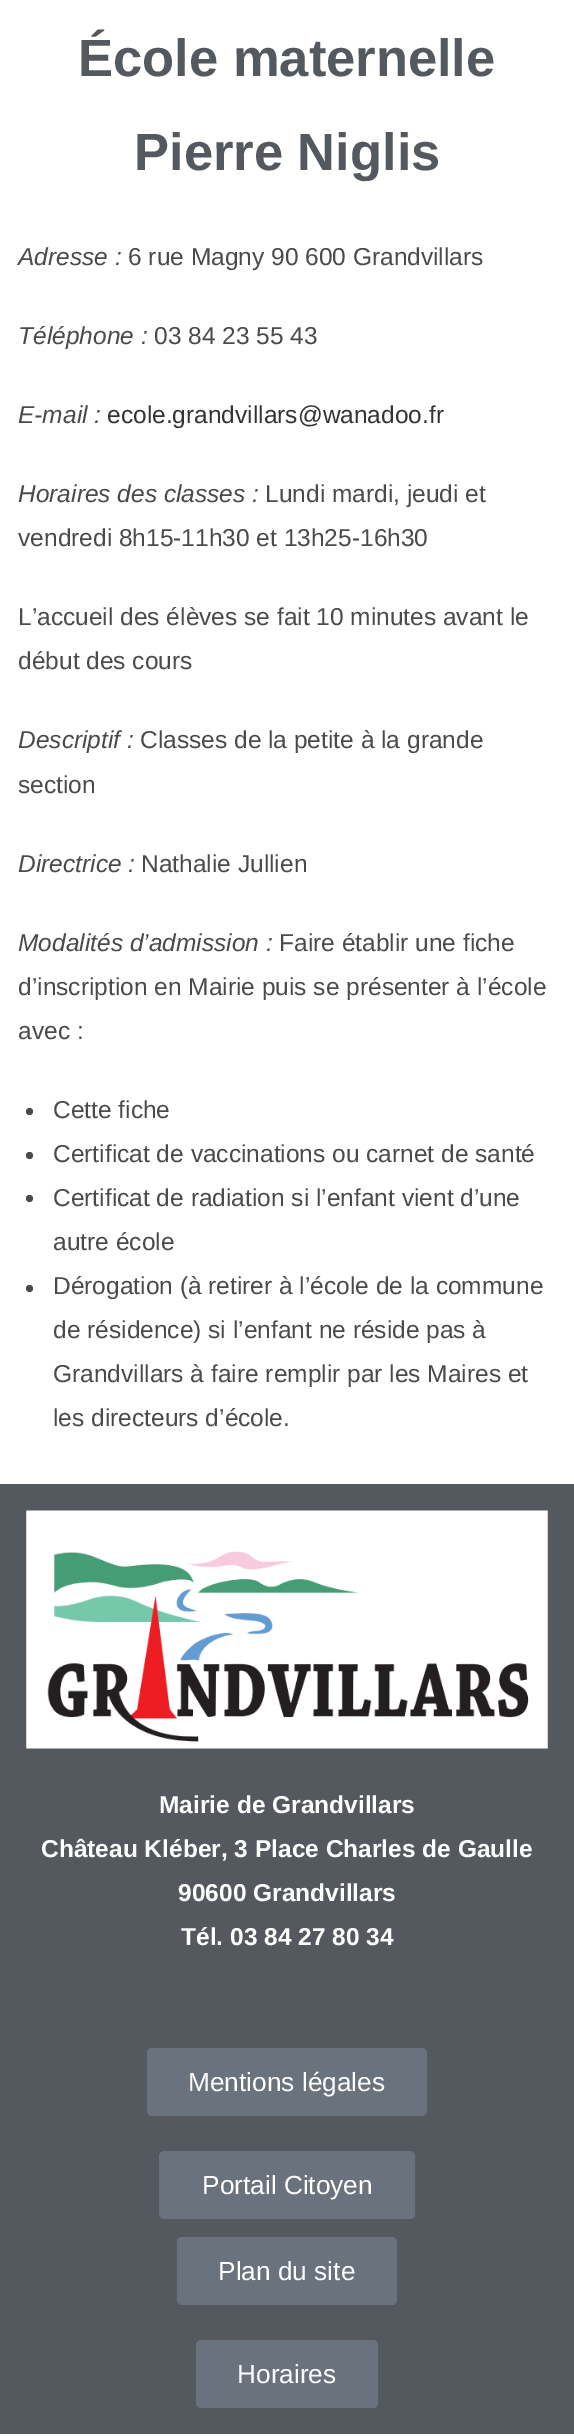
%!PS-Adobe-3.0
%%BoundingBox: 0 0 574 2436
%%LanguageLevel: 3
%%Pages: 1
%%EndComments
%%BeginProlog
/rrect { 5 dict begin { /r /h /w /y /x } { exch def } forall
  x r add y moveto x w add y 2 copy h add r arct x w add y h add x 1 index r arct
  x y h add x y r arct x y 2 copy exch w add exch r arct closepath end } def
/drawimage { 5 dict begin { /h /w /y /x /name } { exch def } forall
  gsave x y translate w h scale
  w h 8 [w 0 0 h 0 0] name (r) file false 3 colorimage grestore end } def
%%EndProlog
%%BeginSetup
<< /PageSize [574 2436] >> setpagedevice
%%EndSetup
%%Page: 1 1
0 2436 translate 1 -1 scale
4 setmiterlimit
1 setgray
0 0 574 2436 rectfill
0.29 setgray
newpath 29.5 1111.5 3.5 0 360 arc closepath fill
newpath 29.5 1155.5 3.5 0 360 arc closepath fill
newpath 29.5 1198.5 3.5 0 360 arc closepath fill
newpath 29.5 1288.5 3.5 0 360 arc closepath fill
0.329 0.349 0.373 setrgbcolor
0 1484 574 950 rectfill
(images/1.raw) 26 1510 522 239 drawimage
0.412 0.447 0.49 setrgbcolor
147 2048 280 68 5 rrect fill
159 2151 256 68 5 rrect fill
177 2237 220 68 5 rrect fill
196 2340 182 68 5 rrect fill
/LiberationSans-Bold [52.5 0 0 -52.5 0 0] selectfont
0.329 0.349 0.373 setrgbcolor
78 76 moveto (École maternelle) show
134 170 moveto (Pierre Niglis) show
/LiberationSans-Italic [24.5 0 0 -24.5 0 0] selectfont
0.29 setgray
18 265 moveto (Adresse :) show
/LiberationSans-Regular [24.5 0 0 -24.5 0 0] selectfont
128 265 moveto (6 rue Magny 90 600 Grandvillars) show
/LiberationSans-Italic [24.5 0 0 -24.5 0 0] selectfont
18 344 moveto (Téléphone :) show
/LiberationSans-Regular [24.5 0 0 -24.5 0 0] selectfont
154 344 moveto (03 84 23 55 43) show
/LiberationSans-Italic [24.5 0 0 -24.5 0 0] selectfont
18 423 moveto (E-mail :) show
/LiberationSans-Regular [24.5 0 0 -24.5 0 0] selectfont
0.2 setgray
107 423 moveto (ecole.grandvillars@wanadoo.fr) show
/LiberationSans-Italic [24.5 0 0 -24.5 0 0] selectfont
0.29 setgray
18 502 moveto (Horaires des classes :) show
/LiberationSans-Regular [24.5 0 0 -24.5 0 0] selectfont
265 502 moveto (Lundi mardi, jeudi et) show
18 546 moveto (vendredi 8h15-11h30 et 13h25-16h30) show
18 625 moveto (L’accueil des élèves se fait 10 minutes avant le) show
18 669 moveto (début des cours) show
/LiberationSans-Italic [24.5 0 0 -24.5 0 0] selectfont
18 748 moveto (Descriptif :) show
/LiberationSans-Regular [24.5 0 0 -24.5 0 0] selectfont
140 748 moveto (Classes de la petite à la grande) show
18 793 moveto (section) show
/LiberationSans-Italic [24.5 0 0 -24.5 0 0] selectfont
18 872 moveto (Directrice :) show
/LiberationSans-Regular [24.5 0 0 -24.5 0 0] selectfont
141 872 moveto (Nathalie Jullien) show
/LiberationSans-Italic [24.5 0 0 -24.5 0 0] selectfont
18 951 moveto (Modalités d’admission :) show
/LiberationSans-Regular [24.5 0 0 -24.5 0 0] selectfont
279 951 moveto (Faire établir une fiche) show
18 995 moveto (d’inscription en Mairie puis se présenter à l’école) show
18 1039 moveto (avec :) show
53 1118 moveto (Cette fiche) show
53 1162 moveto (Certificat de vaccinations ou carnet de santé) show
53 1206 moveto (Certificat de radiation si l’enfant vient d’une) show
53 1250 moveto (autre école) show
53 1294 moveto (Dérogation \(à retirer à l’école de la commune) show
53 1338 moveto (de résidence\) si l’enfant ne réside pas à) show
53 1382 moveto (Grandvillars à faire remplir par les Maires et) show
53 1426 moveto (les directeurs d’école.) show
/LiberationSans-Bold [24.5 0 0 -24.5 0 0] selectfont
1 setgray
159 1813 moveto (Mairie de Grandvillars) show
41 1857 moveto (Château Kléber, 3 Place Charles de Gaulle) show
178 1901 moveto (90600 Grandvillars) show
181 1945 moveto (Tél. 03 84 27 80 34) show
/LiberationSans-Regular [26.25 0 0 -26.25 0 0] selectfont
188 2091 moveto (Mentions légales) show
202 2194 moveto (Portail Citoyen) show
218 2280 moveto (Plan du site) show
237 2383 moveto (Horaires) show
showpage
%%EOF
